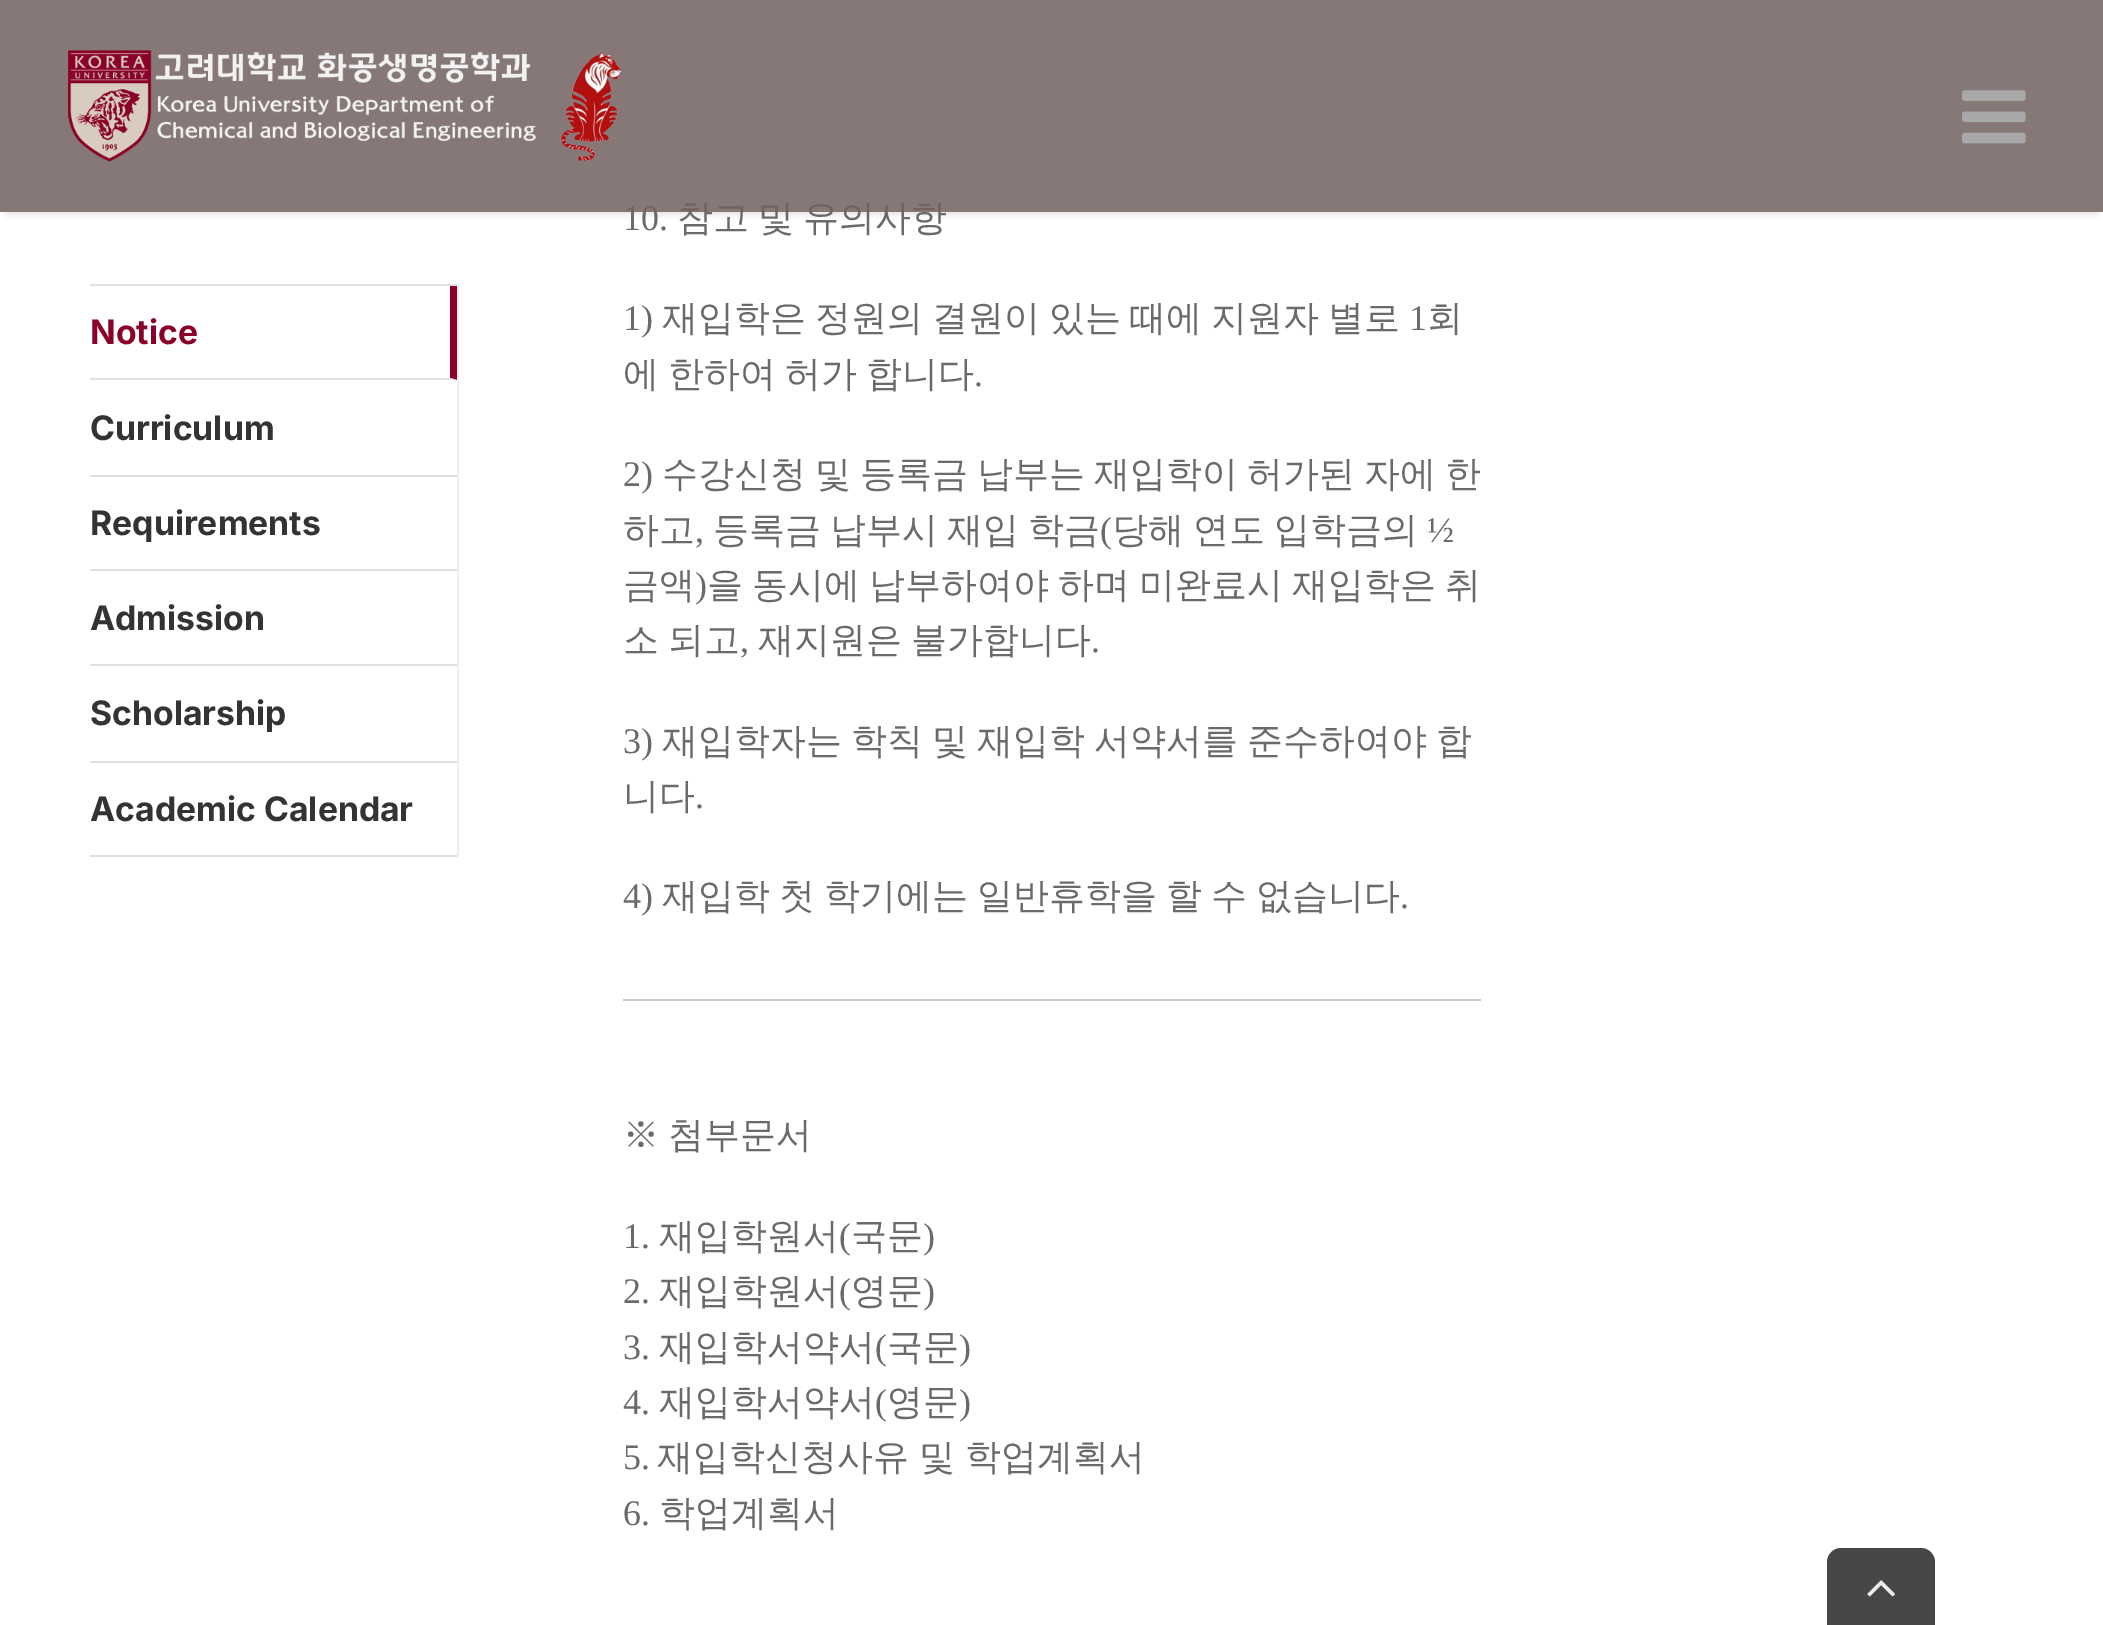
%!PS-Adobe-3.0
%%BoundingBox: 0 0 2103 1625
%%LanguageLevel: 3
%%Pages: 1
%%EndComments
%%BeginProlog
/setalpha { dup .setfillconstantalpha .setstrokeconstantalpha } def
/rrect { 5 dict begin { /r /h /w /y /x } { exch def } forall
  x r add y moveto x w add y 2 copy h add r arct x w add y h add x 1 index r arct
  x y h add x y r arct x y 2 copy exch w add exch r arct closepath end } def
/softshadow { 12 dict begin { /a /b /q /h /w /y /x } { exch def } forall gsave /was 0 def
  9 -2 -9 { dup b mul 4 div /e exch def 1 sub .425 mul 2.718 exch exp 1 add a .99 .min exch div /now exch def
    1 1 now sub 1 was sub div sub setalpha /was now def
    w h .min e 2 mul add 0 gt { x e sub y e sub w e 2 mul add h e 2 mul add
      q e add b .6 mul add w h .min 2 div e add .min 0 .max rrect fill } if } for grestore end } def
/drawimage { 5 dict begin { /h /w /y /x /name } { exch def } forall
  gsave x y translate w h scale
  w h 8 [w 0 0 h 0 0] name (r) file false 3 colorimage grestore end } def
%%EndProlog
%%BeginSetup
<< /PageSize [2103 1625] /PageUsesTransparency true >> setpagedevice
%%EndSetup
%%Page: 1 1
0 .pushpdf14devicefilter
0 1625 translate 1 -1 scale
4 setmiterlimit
1 setgray
0 0 2103 1625 rectfill
gsave
newpath 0 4 moveto 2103 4 lineto 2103 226 lineto 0 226 lineto closepath 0 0 moveto 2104 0 lineto 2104 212 lineto 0 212 lineto closepath eoclip newpath
0 setgray
7 16 2090 198 0 3.5 0.12 softshadow
grestore
0.878 0.871 0.871 setrgbcolor
90 284 369 2 rectfill
0.929 setgray
457 284 2 573 rectfill
0.545 0 0.157 setrgbcolor
newpath 457 286 moveto 457 380 lineto 450 378 lineto 450 286 lineto closepath fill
0.878 0.871 0.871 setrgbcolor
newpath 457 380 moveto 90 380 lineto 90 378 lineto 450 378 lineto closepath fill
90 475 367 2 rectfill
90 569 367 2 rectfill
90 664 367 2 rectfill
90 761 367 2 rectfill
90 855 367 2 rectfill
0.8 setgray
623 999 858 2 rectfill
0.278 setgray
newpath 1841 1548 moveto 1921 1548 lineto 1928.5 1548 1935 1554.5 1935 1562 curveto 1935 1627 lineto 1827 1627 lineto 1827 1562 lineto 1827 1554.5 1833.5 1548 1841 1548 curveto closepath fill
(images/3.raw) 1867 1580 28 17 drawimage
/Inter-Bold [33.75 0 0 -33.75 0 0] selectfont
0.545 0 0.157 setrgbcolor
90 344 moveto (Notice) show
0.2 setgray
90 440 moveto (Curriculum) show
90 535 moveto (Requirements) show
90 630 moveto (Admission) show
90 725 moveto (Scholarship) show
90 821 moveto (Academic Calendar) show
/LiberationSerif-Regular [36 0 0 -36 0 0] selectfont
0.416 setgray
623 230 moveto (10.) show
/WenQuanYiZenHei-Medium [36 0 0 -36 0 0] selectfont
677 230 moveto -1.75 0 32 (참고 및 유의사항) widthshow
0.85 setalpha
0.447 0.376 0.376 setrgbcolor
0 0 2103 212 rectfill
1 setalpha
(images/2.raw) 1962 90 64 54 drawimage
(images/1.raw) 68 50 554 112 drawimage
/LiberationSerif-Regular [36 0 0 -36 0 0] selectfont
0.416 setgray
623 330 moveto (1\)) show
/WenQuanYiZenHei-Medium [36 0 0 -36 0 0] selectfont
662 330 moveto -1.75 0 32 (재입학은 정원의 결원이 있는 때에 지원자 별로) widthshow
/LiberationSerif-Regular [36 0 0 -36 0 0] selectfont
1409 330 moveto (1) show
/WenQuanYiZenHei-Medium [36 0 0 -36 0 0] selectfont
1427 330 moveto (회) show
623 386 moveto -1.75 0 32 (에 한하여 허가 합니다) widthshow
/LiberationSerif-Regular [36 0 0 -36 0 0] selectfont
974 386 moveto (.) show
623 486 moveto (2\)) show
/WenQuanYiZenHei-Medium [36 0 0 -36 0 0] selectfont
662 486 moveto -1.75 0 32 (수강신청 및 등록금 납부는 재입학이 허가된 자에 한) widthshow
623 542 moveto (하고) show
713 542 moveto -1.75 0 32 (등록금 납부시 재입 학금) widthshow
/LiberationSerif-Regular [36 0 0 -36 0 0] selectfont
1100 542 moveto (\() show
/WenQuanYiZenHei-Medium [36 0 0 -36 0 0] selectfont
1112 542 moveto -1.75 0 32 (당해 연도 입학금의) widthshow
/LiberationSerif-Regular [36 0 0 -36 0 0] selectfont
1427 542 moveto (½) show
695 542 moveto (,) show
/WenQuanYiZenHei-Medium [36 0 0 -36 0 0] selectfont
623 597 moveto (금액) show
/LiberationSerif-Regular [36 0 0 -36 0 0] selectfont
695 597 moveto (\)) show
/WenQuanYiZenHei-Medium [36 0 0 -36 0 0] selectfont
707 597 moveto -1.75 0 32 (을 동시에 납부하여야 하며 미완료시 재입학은 취) widthshow
623 652 moveto -1.75 0 32 (소 되고) widthshow
/LiberationSerif-Regular [36 0 0 -36 0 0] selectfont
740 652 moveto (,) show
/WenQuanYiZenHei-Medium [36 0 0 -36 0 0] selectfont
758 652 moveto -1.75 0 32 (재지원은 불가합니다) widthshow
/LiberationSerif-Regular [36 0 0 -36 0 0] selectfont
1091 652 moveto (.) show
623 753 moveto (3\)) show
/WenQuanYiZenHei-Medium [36 0 0 -36 0 0] selectfont
662 753 moveto -1.75 0 32 (재입학자는 학칙 및 재입학 서약서를 준수하여야 합) widthshow
623 808 moveto (니다) show
/LiberationSerif-Regular [36 0 0 -36 0 0] selectfont
695 808 moveto (.) show
623 908 moveto (4\)) show
/WenQuanYiZenHei-Medium [36 0 0 -36 0 0] selectfont
662 908 moveto -1.75 0 32 (재입학 첫 학기에는 일반휴학을 할 수 없습니다) widthshow
/LiberationSerif-Regular [36 0 0 -36 0 0] selectfont
1400 908 moveto (.) show
/WenQuanYiZenHei-Medium [36 0 0 -36 0 0] selectfont
623 1147 moveto (※) show
668 1147 moveto (첨부문서) show
/LiberationSerif-Regular [36 0 0 -36 0 0] selectfont
623 1248 moveto (1.) show
/WenQuanYiZenHei-Medium [36 0 0 -36 0 0] selectfont
659 1248 moveto (재입학원서) show
/LiberationSerif-Regular [36 0 0 -36 0 0] selectfont
839 1248 moveto (\() show
/WenQuanYiZenHei-Medium [36 0 0 -36 0 0] selectfont
851 1248 moveto (국문) show
/LiberationSerif-Regular [36 0 0 -36 0 0] selectfont
923 1248 moveto (\)) show
623 1303 moveto (2.) show
/WenQuanYiZenHei-Medium [36 0 0 -36 0 0] selectfont
659 1303 moveto (재입학원서) show
/LiberationSerif-Regular [36 0 0 -36 0 0] selectfont
839 1303 moveto (\() show
/WenQuanYiZenHei-Medium [36 0 0 -36 0 0] selectfont
851 1303 moveto (영문) show
/LiberationSerif-Regular [36 0 0 -36 0 0] selectfont
923 1303 moveto (\)) show
623 1359 moveto (3.) show
/WenQuanYiZenHei-Medium [36 0 0 -36 0 0] selectfont
659 1359 moveto (재입학서약서) show
/LiberationSerif-Regular [36 0 0 -36 0 0] selectfont
875 1359 moveto (\() show
/WenQuanYiZenHei-Medium [36 0 0 -36 0 0] selectfont
887 1359 moveto (국문) show
/LiberationSerif-Regular [36 0 0 -36 0 0] selectfont
959 1359 moveto (\)) show
623 1414 moveto (4.) show
/WenQuanYiZenHei-Medium [36 0 0 -36 0 0] selectfont
659 1414 moveto (재입학서약서) show
/LiberationSerif-Regular [36 0 0 -36 0 0] selectfont
875 1414 moveto (\() show
/WenQuanYiZenHei-Medium [36 0 0 -36 0 0] selectfont
887 1414 moveto (영문) show
/LiberationSerif-Regular [36 0 0 -36 0 0] selectfont
959 1414 moveto (\)) show
623 1469 moveto (5.) show
/WenQuanYiZenHei-Medium [36 0 0 -36 0 0] selectfont
657 1469 moveto -1 0 32 (재입학신청사유 및 학업계획서) widthshow
/LiberationSerif-Regular [36 0 0 -36 0 0] selectfont
623 1525 moveto (6.) show
/WenQuanYiZenHei-Medium [36 0 0 -36 0 0] selectfont
659 1525 moveto (학업계획서) show
.poppdf14devicefilter showpage
%%EOF
